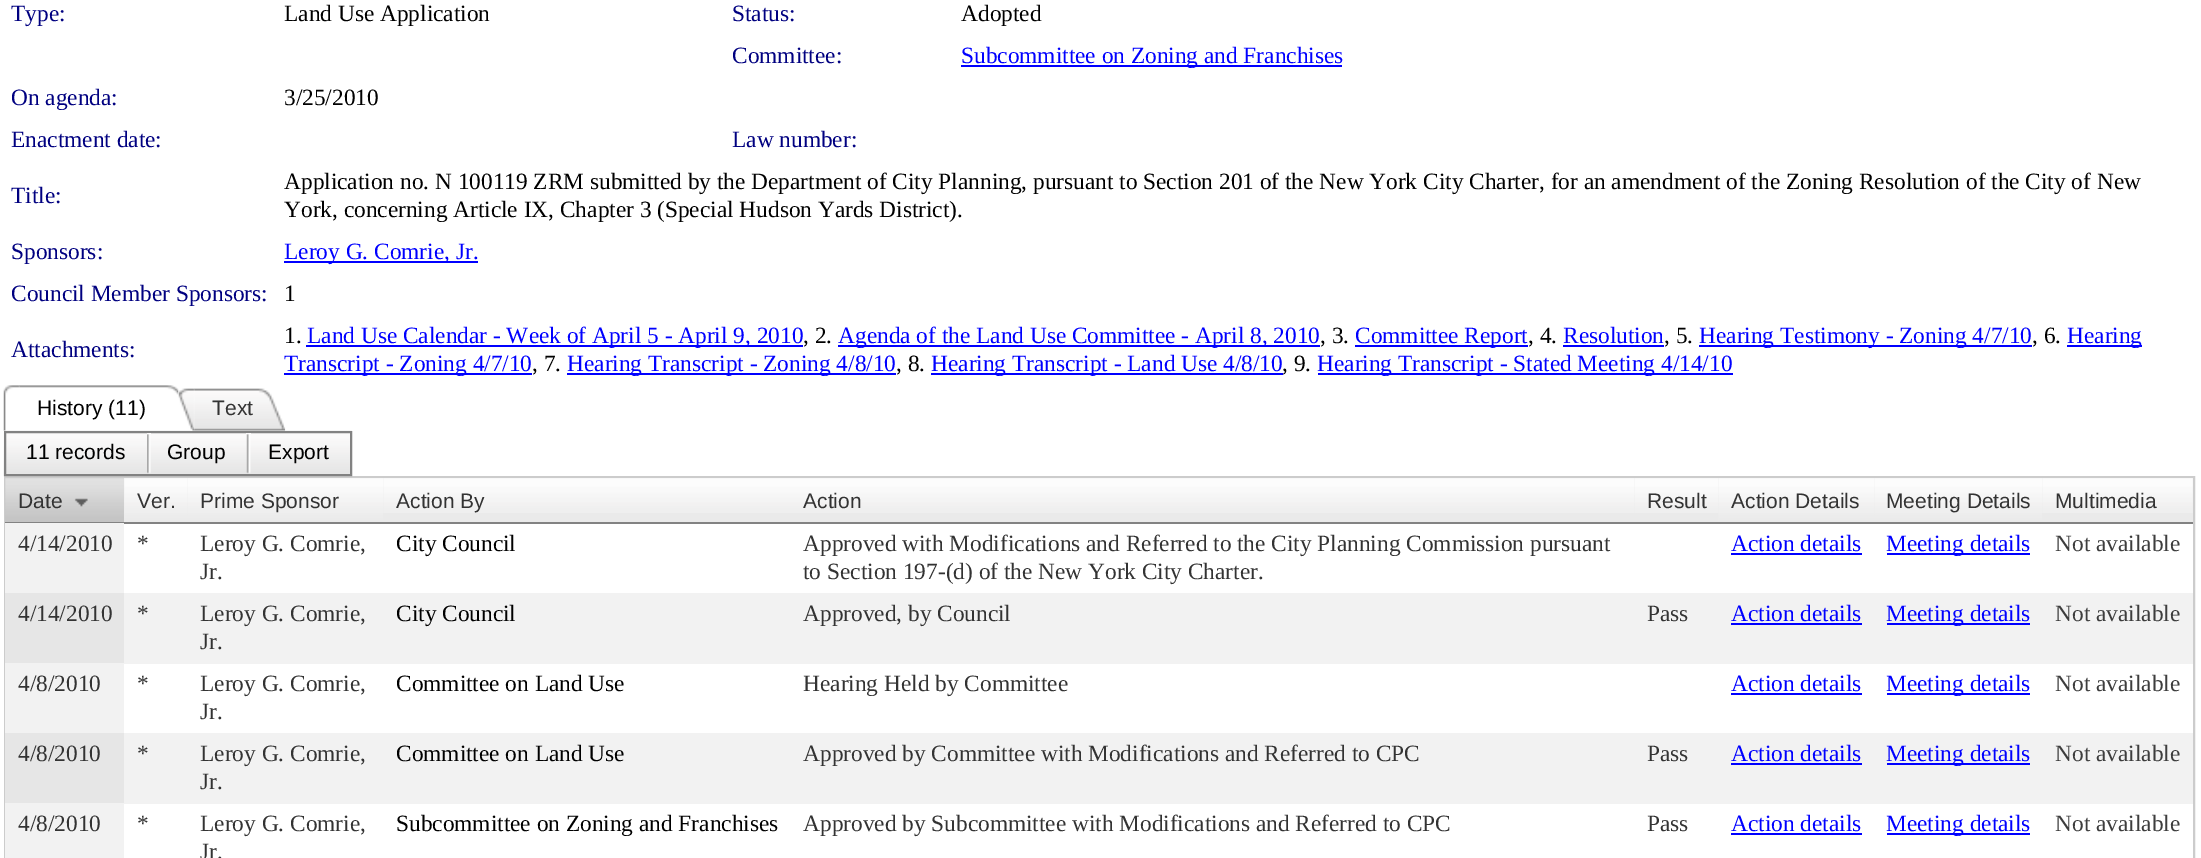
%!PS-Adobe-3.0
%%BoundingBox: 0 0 2201 858
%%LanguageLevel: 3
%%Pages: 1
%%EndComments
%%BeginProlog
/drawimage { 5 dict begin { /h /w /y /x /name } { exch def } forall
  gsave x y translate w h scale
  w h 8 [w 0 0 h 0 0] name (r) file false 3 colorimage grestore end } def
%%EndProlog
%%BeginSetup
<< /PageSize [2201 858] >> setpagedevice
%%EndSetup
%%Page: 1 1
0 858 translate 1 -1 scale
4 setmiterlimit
1 setgray
0 0 2201 858 rectfill
0 0 1 setrgbcolor
961 65 381 2 rectfill
284 261 194 2 rectfill
306 345 497 2 rectfill
838 345 482 2 rectfill
1355 345 173 2 rectfill
1563 345 101 2 rectfill
1699 345 333 2 rectfill
2067 345 75 2 rectfill
284 373 248 2 rectfill
567 373 329 2 rectfill
931 373 352 2 rectfill
1318 373 415 2 rectfill
(images/1.raw) 3 385 17 46 drawimage
(images/2.raw) 19 385 160 10 drawimage
(images/3.raw) 178 388 17 43 drawimage
(images/4.raw) 194 388 92 43 drawimage
0.8 setgray
2 setlinewidth
5 477 2189 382 rectstroke
(images/5.raw) 3 430 349 47 drawimage
0.51 setgray
5 432 346 43 rectstroke
(images/6.raw) 147 433 4 41 drawimage
(images/7.raw) 246 433 5 41 drawimage
0.769 setgray
5 478 119 44 rectfill
(images/8.raw) 5 478 119 44 drawimage
0.51 setgray
5 522 119 1 rectfill
(images/9.raw) 74 498 14 9 drawimage
0.918 setgray
124 478 2069 44 rectfill
(images/10.raw) 124 478 63 43 drawimage
0.51 setgray
124 522 2069 2 rectfill
(images/11.raw) 187 478 196 43 drawimage
(images/12.raw) 383 478 408 35 drawimage
(images/13.raw) 791 478 844 35 drawimage
(images/14.raw) 1634 478 85 35 drawimage
(images/15.raw) 1718 478 156 43 drawimage
(images/16.raw) 1874 478 168 43 drawimage
(images/17.raw) 2042 478 151 35 drawimage
0.949 setgray
5 523 119 70 rectfill
0 0 1 setrgbcolor
1731 553 131 2 rectfill
1887 553 143 2 rectfill
0.949 setgray
124 593 2069 69 rectfill
0.902 setgray
5 593 119 70 rectfill
0.949 setgray
124 662 2069 2 rectfill
0 0 1 setrgbcolor
1731 623 131 2 rectfill
1887 623 143 2 rectfill
0.949 setgray
5 663 119 70 rectfill
0 0 1 setrgbcolor
1731 693 131 2 rectfill
1887 693 143 2 rectfill
0.949 setgray
124 733 2069 69 rectfill
0.902 setgray
5 733 119 70 rectfill
0.949 setgray
124 802 2069 2 rectfill
0 0 1 setrgbcolor
1731 763 131 2 rectfill
1887 763 143 2 rectfill
0.949 setgray
5 803 119 55 rectfill
0 0 1 setrgbcolor
1731 833 131 2 rectfill
1887 833 143 2 rectfill
/LiberationSerif-Regular [23.33 0 0 -23.33 0 0] selectfont
0 0 0.502 setrgbcolor
11 21 moveto (Type:) show
0 setgray
284 21 moveto (Land Use Application) show
0 0 0.502 setrgbcolor
732 21 moveto (Status:) show
0 setgray
961 21 moveto (Adopted) show
0 0 0.502 setrgbcolor
732 63 moveto (Committee:) show
0 0 1 setrgbcolor
961 63 moveto (Subcommittee on Zoning and Franchises) show
0 0 0.502 setrgbcolor
11 105 moveto (On agenda:) show
0 setgray
284 105 moveto (3/25/2010) show
0 0 0.502 setrgbcolor
11 147 moveto (Enactment date:) show
732 147 moveto (Law number:) show
11 203 moveto (Title:) show
0 setgray
284 189 moveto (Application no. N 100119 ZRM submitted by the Department of City Planning, pursuant to Section 201 of the New York City Charter, for an amendment of the Zoning Resolution of the City of New) show
284 217 moveto (York, concerning Article IX, Chapter 3 \(Special Hudson Yards District\).) show
0 0 0.502 setrgbcolor
11 259 moveto (Sponsors:) show
0 0 1 setrgbcolor
284 259 moveto (Leroy G. Comrie, Jr.) show
0 0 0.502 setrgbcolor
11 301 moveto (Council Member Sponsors:) show
0 setgray
284 301 moveto (1) show
0 0 0.502 setrgbcolor
11 357 moveto (Attachments:) show
0 setgray
284 343 moveto (1.) show
0 0 1 setrgbcolor
307 343 moveto (Land Use Calendar - Week of April 5 - April 9, 2010) show
0 setgray
803 343 moveto (, 2.) show
0 0 1 setrgbcolor
838 343 moveto (Agenda of the Land Use Committee - April 8, 2010) show
0 setgray
1320 343 moveto (, 3.) show
0 0 1 setrgbcolor
1355 343 moveto (Committee Report) show
0 setgray
1528 343 moveto (, 4.) show
0 0 1 setrgbcolor
1563 343 moveto (Resolution) show
0 setgray
1664 343 moveto (, 5.) show
0 0 1 setrgbcolor
1699 343 moveto (Hearing Testimony - Zoning 4/7/10) show
0 setgray
2032 343 moveto (, 6.) show
0 0 1 setrgbcolor
2067 343 moveto (Hearing) show
284 371 moveto (Transcript - Zoning 4/7/10) show
0 setgray
532 371 moveto (, 7.) show
0 0 1 setrgbcolor
567 371 moveto (Hearing Transcript - Zoning 4/8/10) show
0 setgray
896 371 moveto (, 8.) show
0 0 1 setrgbcolor
931 371 moveto (Hearing Transcript - Land Use 4/8/10) show
0 setgray
1282 371 moveto (, 9.) show
0 0 1 setrgbcolor
1317 371 moveto (Hearing Transcript - Stated Meeting 4/14/10) show
/LiberationSans-Regular [21 0 0 -21 0 0] selectfont
0 setgray
37 415 moveto (History \(11\)) show
0.2 setgray
212 415 moveto (Text) show
0 setgray
26 459 moveto (11 records) show
167 459 moveto (Group) show
268 459 moveto (Export) show
0.2 setgray
18 508 moveto (Date) show
137 508 moveto (Ver.) show
200 508 moveto (Prime Sponsor) show
396 508 moveto (Action By) show
803 508 moveto (Action) show
1647 508 moveto (Result) show
1731 508 moveto (Action Details) show
1886 508 moveto (Meeting Details) show
2055 508 moveto (Multimedia) show
/LiberationSerif-Regular [23.33 0 0 -23.33 0 0] selectfont
18 551 moveto (4/14/2010) show
137 551 moveto (*) show
200 551 moveto (Leroy G. Comrie,) show
200 579 moveto (Jr.) show
0 setgray
396 551 moveto (City Council) show
0.2 setgray
803 551 moveto (Approved with Modifications and Referred to the City Planning Commission pursuant) show
803 579 moveto (to Section 197-\(d\) of the New York City Charter.) show
0 0 1 setrgbcolor
1731 551 moveto (Action details) show
1886 551 moveto (Meeting details) show
0.239 setgray
2055 551 moveto (Not available) show
0.2 setgray
18 621 moveto (4/14/2010) show
137 621 moveto (*) show
200 621 moveto (Leroy G. Comrie,) show
200 649 moveto (Jr.) show
0 setgray
396 621 moveto (City Council) show
0.2 setgray
803 621 moveto (Approved, by Council) show
1647 621 moveto (Pass) show
0 0 1 setrgbcolor
1731 621 moveto (Action details) show
1886 621 moveto (Meeting details) show
0.239 setgray
2055 621 moveto (Not available) show
0.2 setgray
18 691 moveto (4/8/2010) show
137 691 moveto (*) show
200 691 moveto (Leroy G. Comrie,) show
200 719 moveto (Jr.) show
0 setgray
396 691 moveto (Committee on Land Use) show
0.2 setgray
803 691 moveto (Hearing Held by Committee) show
0 0 1 setrgbcolor
1731 691 moveto (Action details) show
1886 691 moveto (Meeting details) show
0.239 setgray
2055 691 moveto (Not available) show
0.2 setgray
18 761 moveto (4/8/2010) show
137 761 moveto (*) show
200 761 moveto (Leroy G. Comrie,) show
200 789 moveto (Jr.) show
0 setgray
396 761 moveto (Committee on Land Use) show
0.2 setgray
803 761 moveto (Approved by Committee with Modifications and Referred to CPC) show
1647 761 moveto (Pass) show
0 0 1 setrgbcolor
1731 761 moveto (Action details) show
1886 761 moveto (Meeting details) show
0.239 setgray
2055 761 moveto (Not available) show
0.2 setgray
18 831 moveto (4/8/2010) show
137 831 moveto (*) show
200 831 moveto (Leroy G. Comrie,) show
200 859 moveto (Jr.) show
0 setgray
396 831 moveto (Subcommittee on Zoning and Franchises) show
0.2 setgray
803 831 moveto (Approved by Subcommittee with Modifications and Referred to CPC) show
1647 831 moveto (Pass) show
0 0 1 setrgbcolor
1731 831 moveto (Action details) show
1886 831 moveto (Meeting details) show
0.239 setgray
2055 831 moveto (Not available) show
showpage
%%EOF
